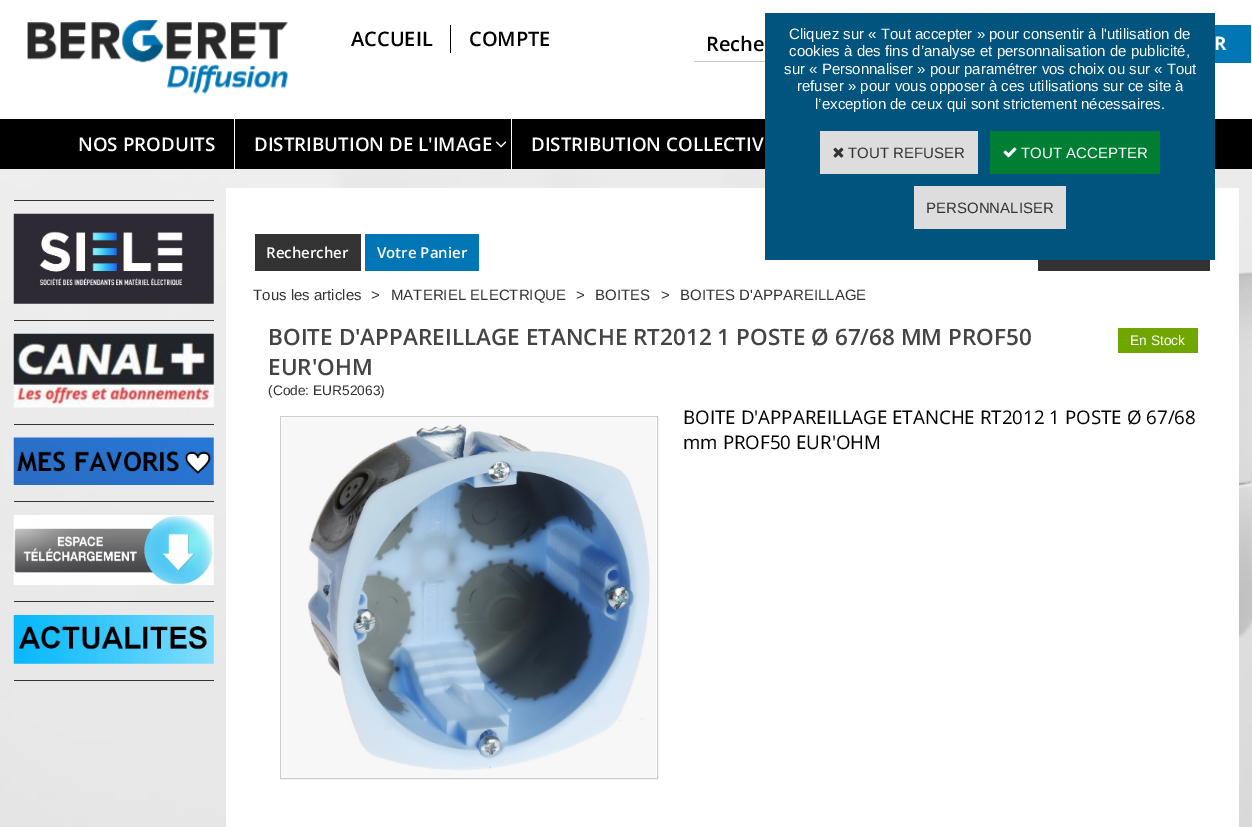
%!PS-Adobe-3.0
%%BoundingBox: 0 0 1252 827
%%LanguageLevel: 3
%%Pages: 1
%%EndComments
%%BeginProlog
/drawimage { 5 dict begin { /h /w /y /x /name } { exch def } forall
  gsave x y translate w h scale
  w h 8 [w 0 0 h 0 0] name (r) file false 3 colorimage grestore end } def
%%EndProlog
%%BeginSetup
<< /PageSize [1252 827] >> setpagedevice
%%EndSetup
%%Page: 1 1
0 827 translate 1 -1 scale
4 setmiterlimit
1 setgray
0 0 1252 827 rectfill
(images/1.raw) 0 169 1252 658 drawimage
0 setgray
0 119 1252 50 rectfill
1 setgray
226 188 1013 639 rectfill
0 0.329 0.494 setrgbcolor
765 13 450 247 rectfill
0.867 setgray
820 131 158 43 rectfill
(images/2.raw) 833 147 11 11 drawimage
0 0.494 0.2 setrgbcolor
990 131 170 43 rectfill
(images/3.raw) 1003 147 14 11 drawimage
0.867 setgray
914 186 152 43 rectfill
(images/4.raw) 27 20 261 75 drawimage
0 setgray
450 25 1 28 rectfill
0.8 setgray
694 61 71 1 rectfill
0 0.467 0.706 setrgbcolor
1215 25 36 38 rectfill
1 setgray
234 119 1 50 rectfill
(images/5.raw) 495 141 12 7 drawimage
511 119 1 50 rectfill
0.2 setgray
14 200 200 1 rectfill
(images/6.raw) 13 213 201 91 drawimage
14 320 200 1 rectfill
(images/7.raw) 13 333 201 75 drawimage
14 424 200 1 rectfill
(images/8.raw) 13 437 201 48 drawimage
14 501 200 1 rectfill
(images/9.raw) 13 515 201 70 drawimage
14 601 200 1 rectfill
(images/10.raw) 13 615 201 49 drawimage
14 680 200 1 rectfill
255 234 106 37 rectfill
0 0.467 0.706 setrgbcolor
365 234 114 37 rectfill
0.2 setgray
1038 260 172 11 rectfill
0.435 0.651 0 setrgbcolor
1118 328 80 25 rectfill
0.8 setgray
280.5 416.5 377 362 rectstroke
(images/11.raw) 281 417 375 361 drawimage
/LiberationSans-Regular [15 0 0 -15 0 0] selectfont
1 setgray
789 39 moveto (Cliquez sur « Tout accepter » pour consentir à l'utilisation de) show
789 56 moveto (cookies à des fins d’analyse et personnalisation de publicité,) show
784 74 moveto (sur « Personnaliser » pour paramétrer vos choix ou sur « Tout) show
797 91 moveto (refuser » pour vous opposer à ces utilisations sur ce site à) show
815 109 moveto (l’exception de ceux qui sont strictement nécessaires.) show
0.2 setgray
848 158 moveto (TOUT REFUSER) show
1 setgray
1021 158 moveto (TOUT ACCEPTER) show
0.2 setgray
926 213 moveto (PERSONNALISER) show
/OpenSans-SemiBold [20 0 0 -20 0 0] selectfont
0 setgray
351 46 moveto (ACCUEIL) show
469 46 moveto (COMPTE) show
706 51 moveto (Reche) show
/OpenSans-Bold [18.75 0 0 -18.75 0 0] selectfont
1 setgray
1214 50 moveto (R) show
/OpenSans-SemiBold [18.75 0 0 -18.75 0 0] selectfont
78 151 moveto (NOS PRODUITS) show
254 151 moveto (DISTRIBUTION DE L'IMAGE) show
531 151 moveto (DISTRIBUTION COLLECTIV) show
/OpenSans-SemiBold [15 0 0 -15 0 0] selectfont
266 258 moveto (Rechercher) show
377 258 moveto (Votre Panier) show
/LiberationSans-Regular [15 0 0 -15 0 0] selectfont
0.2 setgray
253 300 moveto (Tous les articles) show
371 300 moveto (>) show
391 300 moveto (MATERIEL ELECTRIQUE) show
576 300 moveto (>) show
595 300 moveto (BOITES) show
661 300 moveto (>) show
680 300 moveto (BOITES D'APPAREILLAGE) show
/OpenSans-SemiBold [22.5 0 0 -22.5 0 0] selectfont
0.267 setgray
268 345 moveto (BOITE D'APPAREILLAGE ETANCHE RT2012 1 POSTE Ø 67/68 MM PROF50) show
268 375 moveto (EUR'OHM) show
/LiberationSans-Regular [13.75 0 0 -13.75 0 0] selectfont
0.2 setgray
268 395 moveto (\(Code: EUR52063\)) show
1 setgray
1130 345 moveto (En Stock) show
/OpenSans-Regular [18.75 0 0 -18.75 0 0] selectfont
0 setgray
683 424 moveto (BOITE D'APPAREILLAGE ETANCHE RT2012 1 POSTE Ø 67/68) show
683 449 moveto (mm PROF50 EUR'OHM) show
showpage
%%EOF
